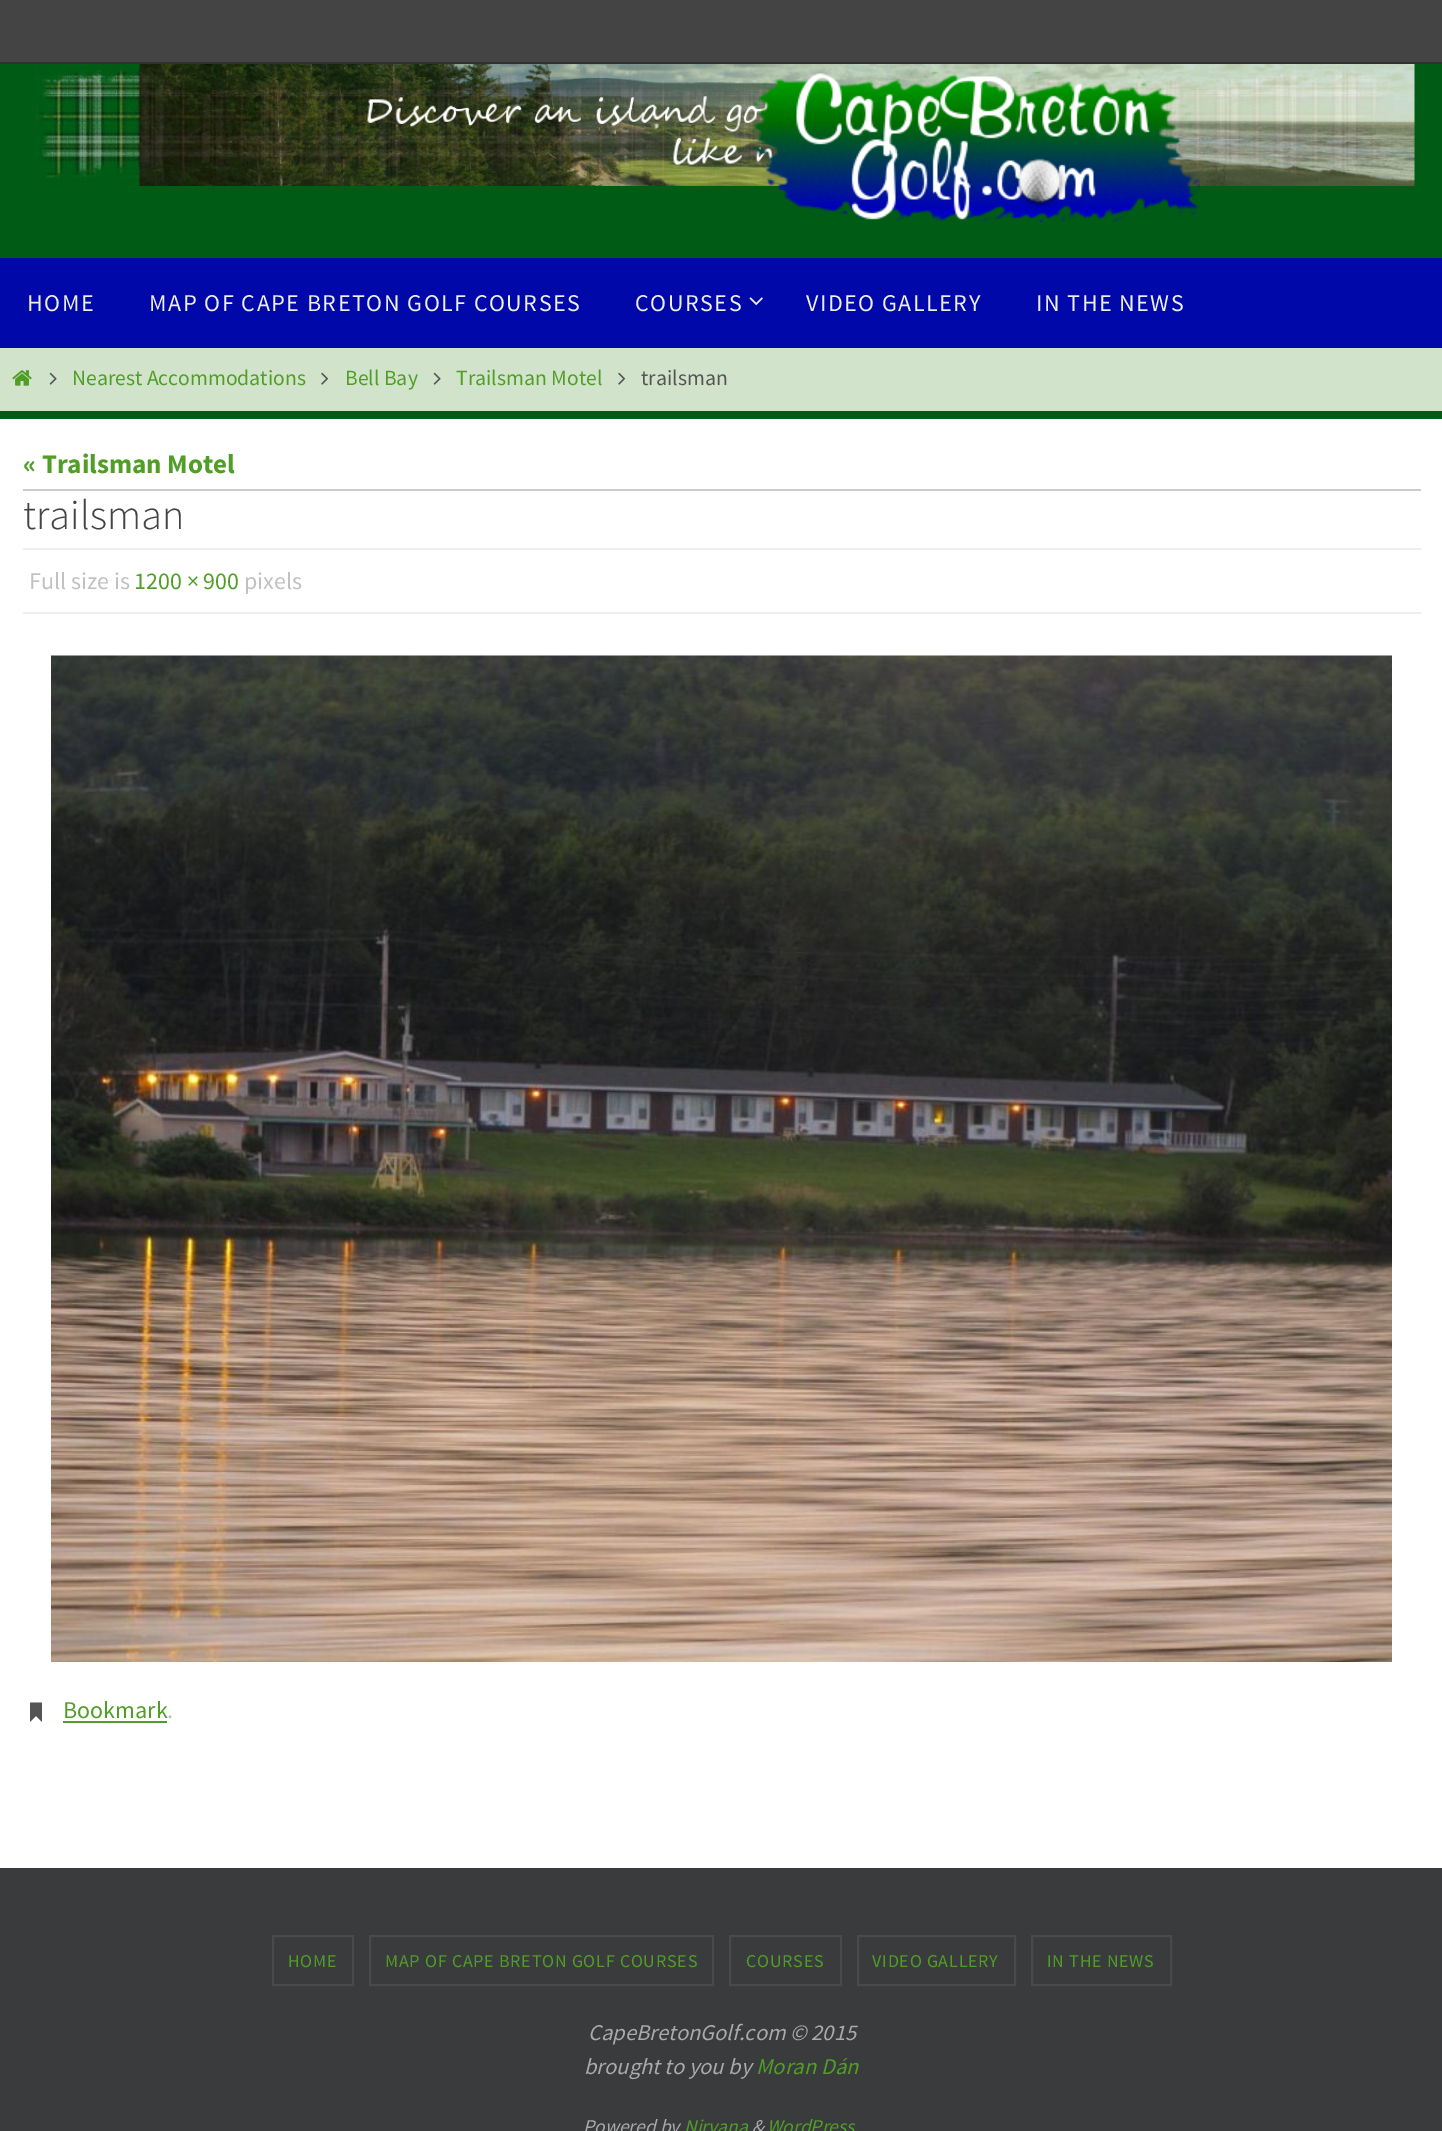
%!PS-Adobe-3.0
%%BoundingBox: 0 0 1442 2131
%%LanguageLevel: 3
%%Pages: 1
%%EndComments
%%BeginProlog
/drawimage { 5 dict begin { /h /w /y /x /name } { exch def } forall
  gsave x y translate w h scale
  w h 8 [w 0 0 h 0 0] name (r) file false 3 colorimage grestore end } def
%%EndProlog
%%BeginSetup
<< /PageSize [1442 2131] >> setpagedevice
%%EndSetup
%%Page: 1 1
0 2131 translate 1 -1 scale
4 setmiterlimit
0 0.361 0.078 setrgbcolor
0 0 1442 2131 rectfill
0.267 setgray
0 0 1442 62 rectfill
0.188 setgray
0 62 1442 2 rectfill
(images/1.raw) 35 64 1380 122 drawimage
(images/2.raw) 751 71 449 152 drawimage
0 0.031 0.663 setrgbcolor
0 258 1442 90 rectfill
(images/3.raw) 749 297 14 9 drawimage
0.82 0.894 0.796 setrgbcolor
0 348 1442 63 rectfill
(images/4.raw) 12 370 20 16 drawimage
(images/5.raw) 49 372 8 13 drawimage
(images/6.raw) 321 372 8 13 drawimage
(images/5.raw) 433 372 8 13 drawimage
(images/6.raw) 618 372 8 13 drawimage
1 setgray
0 419 1442 1449 rectfill
0.8 setgray
23 489 1398 2 rectfill
0.933 setgray
23 548 1398 2 rectfill
23 612 1398 2 rectfill
(images/7.raw) 51 655 1341 1007 drawimage
0.333 setgray
newpath 30 1720 moveto 30 1702.5 lineto 42 1702.5 lineto 42 1722 lineto 36 1716 lineto 30 1722 lineto closepath fill
0.318 0.62 0.153 setrgbcolor
63 1721 104 2 rectfill
0.227 0.231 0.239 setrgbcolor
0 1868 1442 263 rectfill
0.286 0.29 0.298 setrgbcolor
2 setlinewidth
273 1936 80 49 rectstroke
370 1936 343 49 rectstroke
730 1936 111 49 rectstroke
858 1936 157 49 rectstroke
1032 1936 139 49 rectstroke
/SourceSansPro-Regular [24 0 0 -24 0 0] selectfont
0.933 setgray
27 311 moveto 1.5 0 (HOME) ashow
149 311 moveto 1.5 0 (MAP OF CAPE BRETON GOLF COURSES) ashow
635 311 moveto 1.5 0 (COURSES) ashow
806 311 moveto 1.5 0 (VIDEO GALLERY) ashow
1036 311 moveto 1.5 0 (IN THE NEWS) ashow
/SourceSansPro-Regular [21.6 0 0 -21.6 0 0] selectfont
0.318 0.62 0.153 setrgbcolor
72 385 moveto (Nearest Accommodations) show
345 385 moveto (Bell Bay) show
456 385 moveto (Trailsman Motel) show
0.333 setgray
641 385 moveto (trailsman) show
/SourceSansPro-Bold [27 0 0 -27 0 0] selectfont
0.318 0.62 0.153 setrgbcolor
23 473 moveto (« Trailsman Motel) show
/SourceSansPro-Light [42 0 0 -42 0 0] selectfont
0.267 setgray
23 529 moveto (trailsman) show
/SourceSansPro-Regular [24 0 0 -24 0 0] selectfont
0.757 setgray
29 589 moveto (Full size is) show
0.318 0.62 0.153 setrgbcolor
134 589 moveto (1200 × 900) show
0.757 setgray
244 589 moveto (pixels) show
0.318 0.62 0.153 setrgbcolor
63 1718 moveto (Bookmark) show
0.757 setgray
167 1718 moveto (.) show
/SourceSansPro-Regular [18 0 0 -18 0 0] selectfont
0.318 0.62 0.153 setrgbcolor
288 1967 moveto 0.75 0 (HOME) ashow
385 1967 moveto 0.75 0 (MAP OF CAPE BRETON GOLF COURSES) ashow
746 1967 moveto 0.75 0 (COURSES) ashow
872 1967 moveto 0.75 0 (VIDEO GALLERY) ashow
1047 1967 moveto 0.75 0 (IN THE NEWS) ashow
/SourceSansPro-Italic [22.5 0 0 -22.5 0 0] selectfont
0.667 setgray
588 2040 moveto (CapeBretonGolf.com © 2015) show
584 2074 moveto (brought to you by) show
0.318 0.62 0.153 setrgbcolor
756 2074 moveto (Moran Dán) show
/SourceSansPro-Italic [19.5 0 0 -19.5 0 0] selectfont
0.667 setgray
583 2133 moveto (Powered by) show
0.318 0.62 0.153 setrgbcolor
684 2133 moveto (Nirvana) show
0.667 setgray
752 2133 moveto (&) show
0.318 0.62 0.153 setrgbcolor
767 2133 moveto (WordPress.) show
showpage
%%EOF
